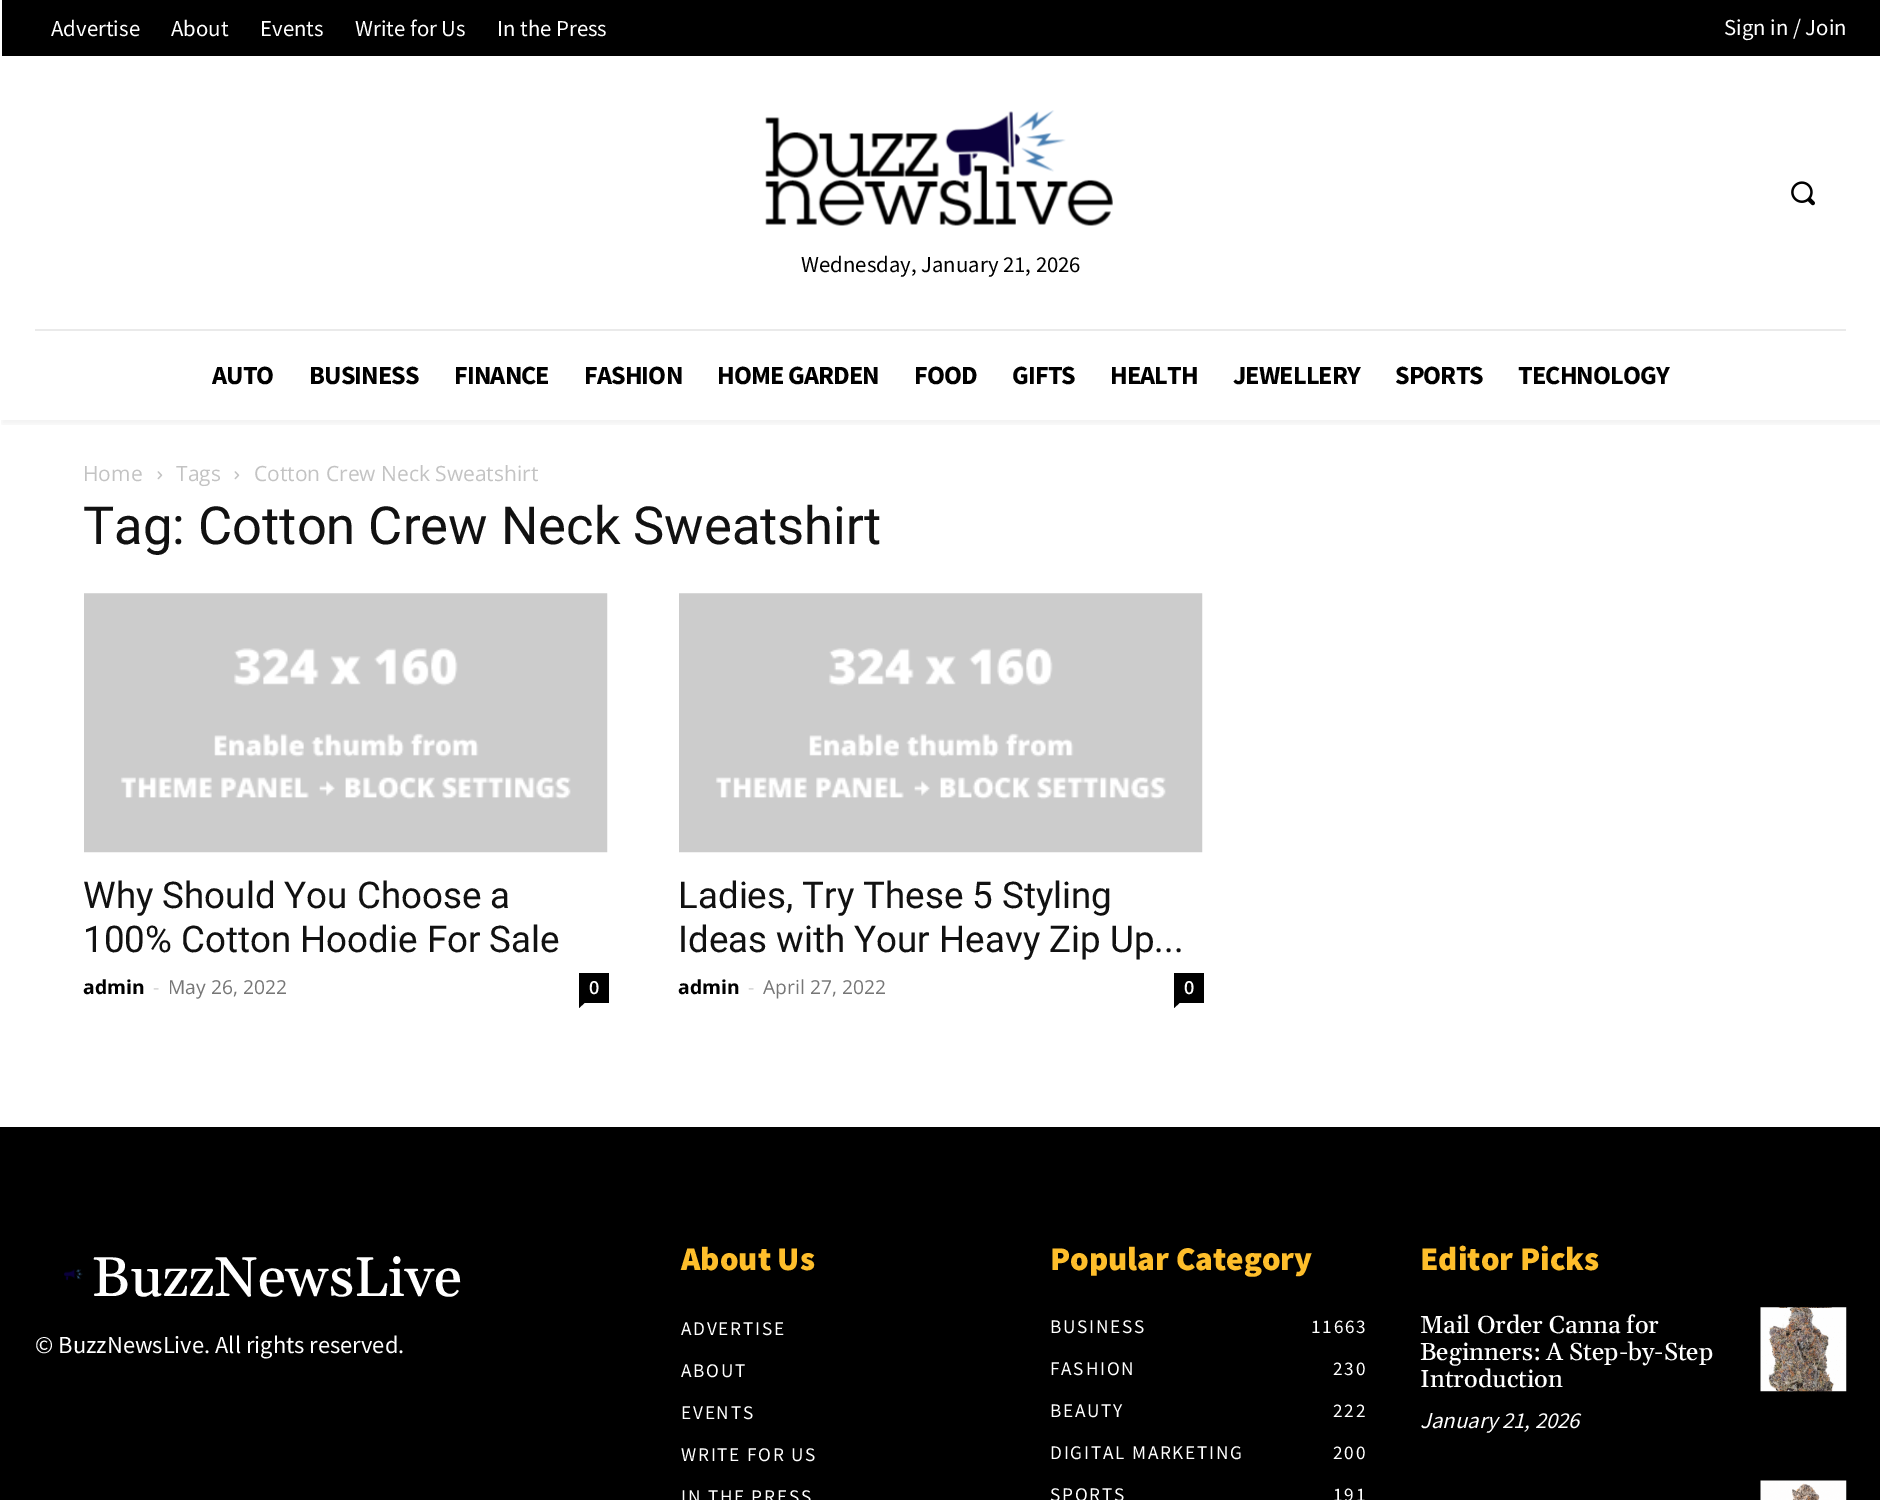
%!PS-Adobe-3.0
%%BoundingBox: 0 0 1880 1500
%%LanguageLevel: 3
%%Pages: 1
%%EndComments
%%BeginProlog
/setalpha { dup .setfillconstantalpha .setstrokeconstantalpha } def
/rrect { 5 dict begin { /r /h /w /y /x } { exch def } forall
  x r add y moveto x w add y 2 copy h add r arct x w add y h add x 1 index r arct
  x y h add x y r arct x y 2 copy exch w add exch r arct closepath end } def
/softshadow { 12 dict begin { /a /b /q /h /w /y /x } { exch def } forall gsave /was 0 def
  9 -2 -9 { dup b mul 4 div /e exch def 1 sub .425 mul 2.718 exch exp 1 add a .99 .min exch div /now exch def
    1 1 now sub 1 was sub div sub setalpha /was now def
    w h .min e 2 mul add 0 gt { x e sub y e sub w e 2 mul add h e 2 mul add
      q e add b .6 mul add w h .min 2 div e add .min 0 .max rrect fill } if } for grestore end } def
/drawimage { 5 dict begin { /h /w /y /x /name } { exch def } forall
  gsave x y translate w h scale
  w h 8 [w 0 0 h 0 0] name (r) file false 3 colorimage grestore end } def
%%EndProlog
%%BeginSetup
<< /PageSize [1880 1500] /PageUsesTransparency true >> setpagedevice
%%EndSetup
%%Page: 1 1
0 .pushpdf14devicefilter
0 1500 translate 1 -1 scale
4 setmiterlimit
1 setgray
0 0 1880 1500 rectfill
0 setgray
2 0 1878 56 rectfill
(images/1.raw) 1791 181 24 25 drawimage
(images/2.raw) 765 110 348 116 drawimage
0.918 setgray
35 329 1811 2 rectfill
gsave
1 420 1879 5 rectclip
0 setgray
2 280 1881 144 0 3.5 0.06 softshadow
grestore
(images/3.raw) 157 471 6 9 drawimage
(images/3.raw) 234 471 6 9 drawimage
(images/4.raw) 84 593 524 260 drawimage
0 setgray
579 973 30 30 rectfill
newpath 579 1003 moveto 584.5 1003 lineto 579 1008 lineto closepath fill
(images/4.raw) 679 593 524 260 drawimage
1174 973 30 30 rectfill
newpath 1174 1003 moveto 1179.5 1003 lineto 1174 1008 lineto closepath fill
0 1127 1880 373 rectfill
(images/5.raw) 64 1269 19 12 drawimage
(images/6.raw) 1760 1307 87 85 drawimage
(images/7.raw) 1760 1480 87 20 drawimage
/SourceSansPro-Regular [22.75 0 0 -22.75 0 0] selectfont
1 setgray
51 36 moveto (Advertise) show
171 36 moveto (About) show
260 36 moveto (Events) show
355 36 moveto (Write for Us) show
497 36 moveto (In the Press) show
1724 35 moveto (Sign in / Join) show
0 setgray
801 272 moveto (Wednesday, January 21, 2026) show
/SourceSansPro-Bold [26.25 0 0 -26.25 0 0] selectfont
212 384 moveto -0.9 0 (AUTO) ashow
309 384 moveto -0.9 0 (BUSINESS) ashow
454 384 moveto -0.9 0 (FINANCE) ashow
584 384 moveto -0.9 0 (FASHION) ashow
717 384 moveto -0.9 0 (HOME GARDEN) ashow
914 384 moveto -0.9 0 (FOOD) ashow
1012 384 moveto -0.9 0 (GIFTS) ashow
1110 384 moveto -0.9 0 (HEALTH) ashow
1233 384 moveto -0.9 0 (JEWELLERY) ashow
1395 384 moveto -0.9 0 (SPORTS) ashow
1518 384 moveto -0.9 0 (TECHNOLOGY) ashow
/OpenSans-Regular [21 0 0 -21 0 0] selectfont
0.765 setgray
83 481 moveto (Home) show
176 481 moveto (Tags) show
254 481 moveto (Cotton Crew Neck Sweatshirt) show
/Roboto-Regular [52.5 0 0 -52.5 0 0] selectfont
0.067 setgray
83 544 moveto (Tag: Cotton Crew Neck Sweatshirt) show
/Roboto-Regular [36.75 0 0 -36.75 0 0] selectfont
83 908 moveto (Why Should You Choose a) show
83 952 moveto (100% Cotton Hoodie For Sale) show
/OpenSans-Bold [19.25 0 0 -19.25 0 0] selectfont
0 setgray
83 994 moveto (admin) show
/OpenSans-Regular [19.25 0 0 -19.25 0 0] selectfont
0.8 setgray
153 994 moveto (-) show
0.463 setgray
168 994 moveto (May 26, 2022) show
/OpenSans-SemiBold [18 0 0 -18 0 0] selectfont
1 setgray
589 994 moveto (0) show
/Roboto-Regular [36.75 0 0 -36.75 0 0] selectfont
0.067 setgray
678 908 moveto (Ladies, Try These 5 Styling) show
678 952 moveto (Ideas with Your Heavy Zip Up...) show
/OpenSans-Bold [19.25 0 0 -19.25 0 0] selectfont
0 setgray
678 994 moveto (admin) show
/OpenSans-Regular [19.25 0 0 -19.25 0 0] selectfont
0.8 setgray
748 994 moveto (-) show
0.463 setgray
763 994 moveto (April 27, 2022) show
/OpenSans-SemiBold [18 0 0 -18 0 0] selectfont
1 setgray
1184 994 moveto (0) show
/Gelasio-Medium [56 0 0 -56 0 0] selectfont
92 1296 moveto (BuzzNewsLive) show
/SourceSansPro-Regular [24.5 0 0 -24.5 0 0] selectfont
35 1353 moveto (© BuzzNewsLive. All rights reserved.) show
/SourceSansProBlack-Black [33.25 0 0 -33.25 0 0] selectfont
0.996 0.745 0.169 setrgbcolor
681 1270 moveto (About Us) show
/SourceSansPro-Regular [19.25 0 0 -19.25 0 0] selectfont
1 setgray
681 1335 moveto 1.75 0 (ADVERTISE) ashow
681 1377 moveto 1.75 0 (ABOUT) ashow
681 1419 moveto 1.75 0 (EVENTS) ashow
681 1461 moveto 1.75 0 (WRITE FOR US) ashow
681 1503 moveto 1.75 0 (IN THE PRESS) ashow
/SourceSansProBlack-Black [33.25 0 0 -33.25 0 0] selectfont
0.996 0.745 0.169 setrgbcolor
1050 1270 moveto (Popular Category) show
/SourceSansPro-Regular [19.25 0 0 -19.25 0 0] selectfont
1 setgray
1050 1333 moveto 1.75 0 (BUSINESS) ashow
1311 1333 moveto 1.75 0 (11663) ashow
1050 1375 moveto 1.75 0 (FASHION) ashow
1333 1375 moveto 1.75 0 (230) ashow
1050 1417 moveto 1.75 0 (BEAUTY) ashow
1333 1417 moveto 1.75 0 (222) ashow
1050 1459 moveto 1.75 0 (DIGITAL MARKETING) ashow
1333 1459 moveto 1.75 0 (200) ashow
1050 1501 moveto 1.75 0 (SPORTS) ashow
1333 1501 moveto 1.75 0 (191) ashow
/SourceSansProBlack-Black [33.25 0 0 -33.25 0 0] selectfont
0.996 0.745 0.169 setrgbcolor
1420 1270 moveto (Editor Picks) show
/Gelasio-Medium [24.5 0 0 -24.5 0 0] selectfont
1 setgray
1420 1333 moveto (Mail Order Canna for) show
1420 1360 moveto (Beginners: A Step-by-Step) show
1420 1387 moveto (Introduction) show
/SourceSansPro-Italic [22.75 0 0 -22.75 0 0] selectfont
1420 1428 moveto (January 21, 2026) show
.poppdf14devicefilter showpage
%%EOF
